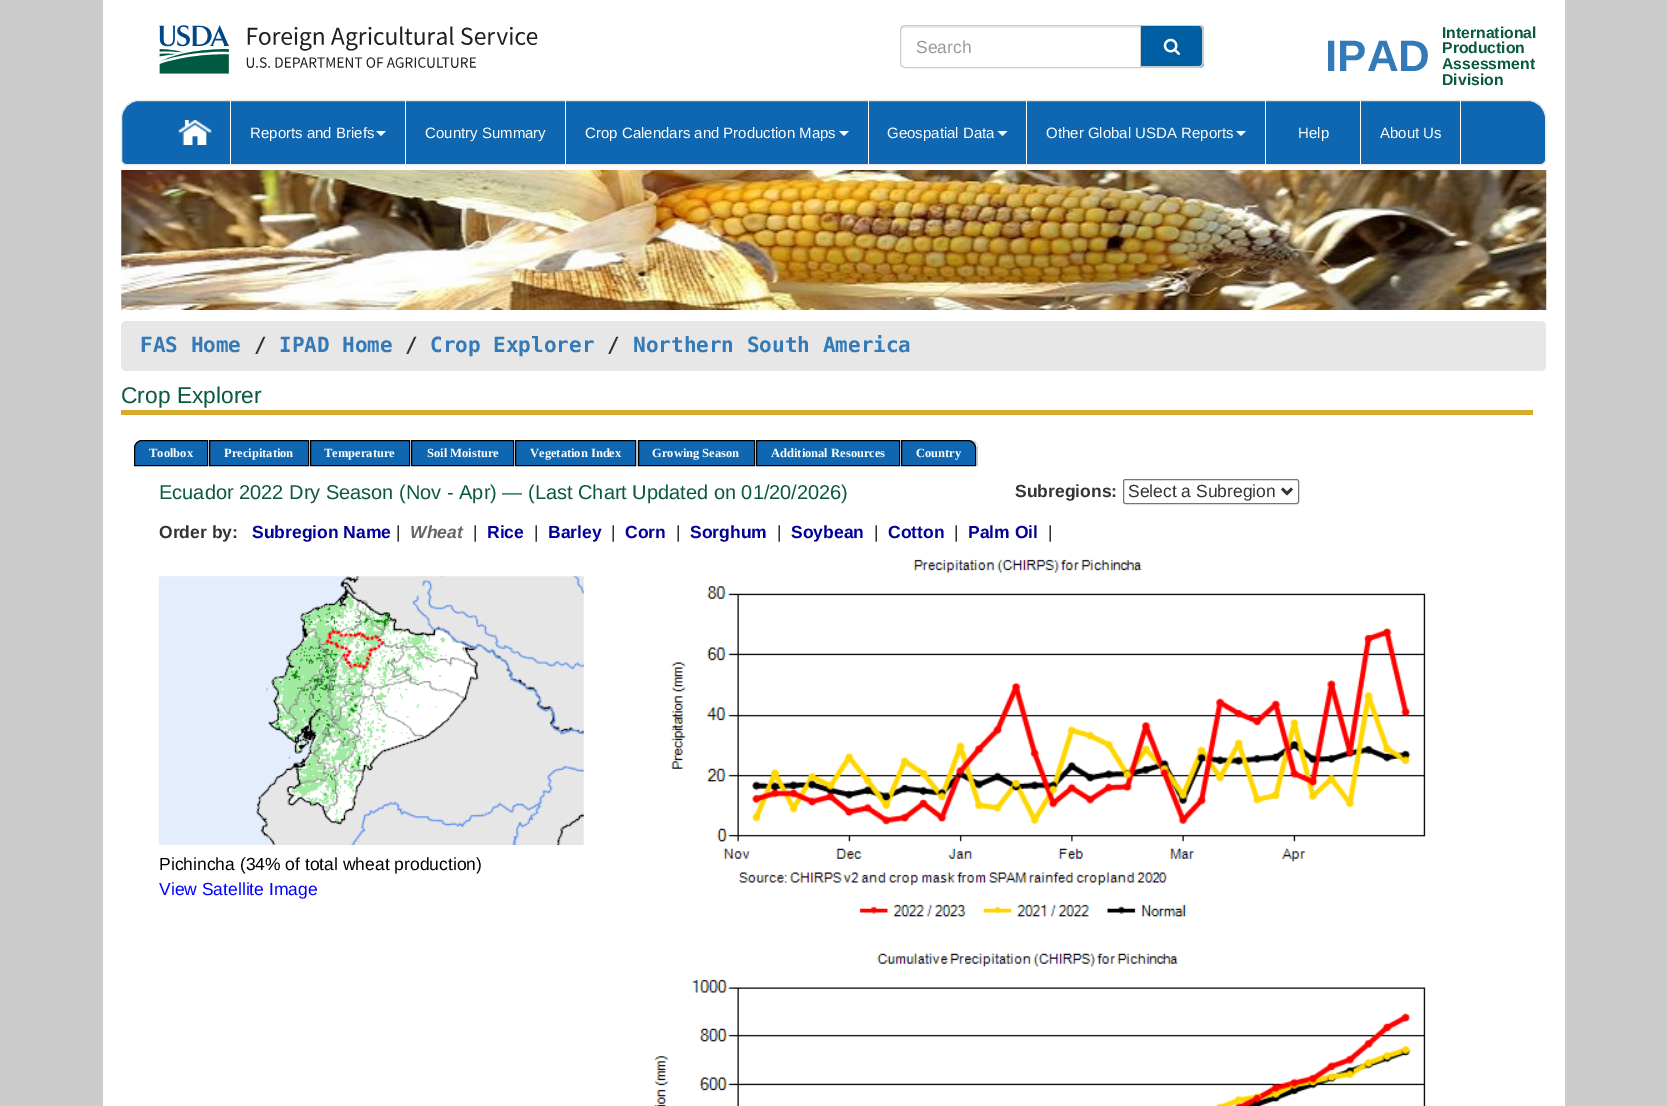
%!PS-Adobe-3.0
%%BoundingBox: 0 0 1667 1106
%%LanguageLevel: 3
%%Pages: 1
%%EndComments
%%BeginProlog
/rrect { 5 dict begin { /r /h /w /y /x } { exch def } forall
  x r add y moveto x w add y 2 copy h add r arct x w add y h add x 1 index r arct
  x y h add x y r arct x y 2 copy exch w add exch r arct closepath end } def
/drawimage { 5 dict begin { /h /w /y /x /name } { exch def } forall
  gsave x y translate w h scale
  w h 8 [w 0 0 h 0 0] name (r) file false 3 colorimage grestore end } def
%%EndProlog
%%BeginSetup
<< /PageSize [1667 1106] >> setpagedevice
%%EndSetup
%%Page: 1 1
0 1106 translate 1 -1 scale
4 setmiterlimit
0.8 setgray
0 0 1667 1106 rectfill
1 setgray
103 0 1462 1106 rectfill
(images/1.raw) 159 25 379 49 drawimage
0.925 setgray
newpath 905 28 moveto 1140 28 lineto 1140 26 lineto 903 26 lineto 901 27 901 29 901 31 curveto 901 29 903 28 905 28 curveto closepath fill
0.8 setgray
newpath 905 25.5 moveto 1140.5 25.5 lineto 1140.5 67.5 lineto 905 67.5 lineto 902.5 67.5 900.5 65.5 900.5 63 curveto 900.5 30 lineto 900.5 27.5 902.5 25.5 905 25.5 curveto closepath stroke
0 0.369 0.635 setrgbcolor
newpath 1141 25 moveto 1199 25 lineto 1202 25 1204 27 1204 30 curveto 1204 63 lineto 1204 66 1202 68 1199 68 curveto 1141 68 lineto closepath fill
0.8 setgray
newpath 1141 25 moveto 1199 25 lineto 1202 25 1204 27 1204 30 curveto 1204 62 lineto 1204 65 1202 68 1199 68 curveto 1141 68 lineto closepath 1141 26 moveto 1199 26 lineto 1201 26 1202 28 1202 30 curveto 1202 62 lineto 1202 65 1201 66 1199 66 curveto 1141 66 lineto closepath eofill
(images/2.raw) 1163 38 17 17 drawimage
0.055 0.404 0.69 setrgbcolor
newpath 139 100.5 moveto 1528 100.5 lineto 1537.5 100.5 1545.5 108.5 1545.5 118 curveto 1545.5 160 lineto 1545.5 162.5 1543.5 164.5 1541 164.5 curveto 126 164.5 lineto 123.5 164.5 121.5 162.5 121.5 160 curveto 121.5 118 lineto 121.5 108.5 129.5 100.5 139 100.5 curveto closepath gsave fill grestore
0.906 setgray
stroke
1 setgray
230 101 1 63 rectfill
(images/3.raw) 178 120 34 25 drawimage
405 101 1 63 rectfill
newpath 376 131 moveto 386 131 lineto 381 136 lineto closepath fill
565 101 1 63 rectfill
868 101 1 63 rectfill
newpath 839 131 moveto 849 131 lineto 844 136 lineto closepath fill
1026 101 1 63 rectfill
newpath 997.5 131 moveto 1007.5 131 lineto 1002.5 136 lineto closepath fill
1265 101 1 63 rectfill
newpath 1236 131 moveto 1246 131 lineto 1241 136 lineto closepath fill
1360 101 1 63 rectfill
1460 101 1 63 rectfill
(images/4.raw) 121 170 1426 140 drawimage
0.906 setgray
121 321 1425 50 5 rrect fill
0.847 0.671 0.176 setrgbcolor
121 410 1412 5 rectfill
0.055 0.404 0.69 setrgbcolor
newpath 142 440.5 moveto 207.5 440.5 lineto 207.5 465.5 lineto 134.5 465.5 lineto 134.5 448 lineto 134.5 444 138 440.5 142 440.5 curveto closepath gsave fill grestore
0 setgray
stroke
0.055 0.404 0.69 setrgbcolor
newpath 209.5 440.5 moveto 308.5 440.5 lineto 308.5 465.5 lineto 209.5 465.5 lineto closepath gsave fill grestore
0 setgray
stroke
0.055 0.404 0.69 setrgbcolor
newpath 310.5 440.5 moveto 409.5 440.5 lineto 409.5 465.5 lineto 310.5 465.5 lineto closepath gsave fill grestore
0 setgray
stroke
0.055 0.404 0.69 setrgbcolor
newpath 411.5 440.5 moveto 513.5 440.5 lineto 513.5 465.5 lineto 411.5 465.5 lineto closepath gsave fill grestore
0 setgray
stroke
0.784 setgray
637 440 1 26 rectfill
0.055 0.404 0.69 setrgbcolor
newpath 515.5 440.5 moveto 635.5 440.5 lineto 635.5 465.5 lineto 515.5 465.5 lineto closepath gsave fill grestore
0 setgray
stroke
0.055 0.404 0.69 setrgbcolor
newpath 638.5 440.5 moveto 754.5 440.5 lineto 754.5 465.5 lineto 638.5 465.5 lineto closepath gsave fill grestore
0 setgray
stroke
0.055 0.404 0.69 setrgbcolor
newpath 756.5 440.5 moveto 899.5 440.5 lineto 899.5 465.5 lineto 756.5 465.5 lineto closepath gsave fill grestore
0 setgray
stroke
0.784 setgray
newpath 901 440 moveto 970 440 lineto 974.5 440 978 443.5 978 448 curveto 978 466 lineto 901 466 lineto closepath fill
1 setgray
976 444 1 22 rectfill
0.055 0.404 0.69 setrgbcolor
newpath 901.5 440.5 moveto 968 440.5 lineto 972 440.5 975.5 444 975.5 448 curveto 975.5 465.5 lineto 901.5 465.5 lineto closepath gsave fill grestore
0 setgray
stroke
0.463 setgray
1123.5 479.5 175 24 2 rrect stroke
0.2 setgray
2.5 setlinewidth
newpath 1282 488.5 moveto 1287 493.5 lineto 1292 488.5 lineto stroke
(images/5.raw) 158 576 426 269 drawimage
(images/6.raw) 671 559 755 358 drawimage
(images/7.raw) 653 953 773 153 drawimage
/LiberationSans-Regular [17.5 0 0 -17.5 0 0] selectfont
0.6 setgray
916 53 moveto (Search) show
/LiberationSans-Bold [44 0 0 -44 0 0] selectfont
0.2 0.478 0.718 setrgbcolor
1325 71 moveto (IPAD) show
/LiberationSans-Bold [15.75 0 0 -15.75 0 0] selectfont
0.043 0.349 0.255 setrgbcolor
1442 38 moveto (International) show
1442 53 moveto (Production) show
1442 69 moveto (Assessment) show
1442 85 moveto (Division) show
/LiberationSans-Regular [15 0 0 -15 0 0] selectfont
1 setgray
250 138 moveto (Reports and Briefs) show
425 138 moveto (Country Summary) show
585 138 moveto (Crop Calendars and Production Maps) show
887 138 moveto (Geospatial Data) show
1046 138 moveto (Other Global USDA Reports) show
1298 138 moveto (Help) show
1380 138 moveto (About Us) show
/DejaVuSansMono-Bold [21 0 0 -21 0 0] selectfont
0.2 0.478 0.718 setrgbcolor
140 352 moveto (FAS Home) show
0.2 setgray
254 352 moveto (/) show
0.2 0.478 0.718 setrgbcolor
279 352 moveto (IPAD Home) show
0.2 setgray
405 352 moveto (/) show
0.2 0.478 0.718 setrgbcolor
430 352 moveto (Crop Explorer) show
0.2 setgray
607 352 moveto (/) show
0.2 0.478 0.718 setrgbcolor
633 352 moveto (Northern South America) show
/LiberationSans-Regular [22.75 0 0 -22.75 0 0] selectfont
0.043 0.349 0.255 setrgbcolor
121 403 moveto (Crop Explorer) show
/LiberationSerif-Bold [12.5 0 0 -12.5 0 0] selectfont
1 setgray
149 457 moveto (Toolbox) show
224 457 moveto (Precipitation) show
324 457 moveto (Temperature) show
427 457 moveto (Soil Moisture) show
530 457 moveto (Vegetation Index) show
652 457 moveto (Growing Season) show
771 457 moveto (Additional Resources) show
916 457 moveto (Country) show
/LiberationSans-Regular [20 0 0 -20 0 0] selectfont
0.043 0.349 0.255 setrgbcolor
159 499 moveto (Ecuador 2022 Dry Season \(Nov - Apr\) — \(Last Chart Updated on 01/20/2026\)) show
/LiberationSans-Bold [17.5 0 0 -17.5 0 0] selectfont
0.2 setgray
1015 497 moveto (Subregions:) show
/LiberationSans-Regular [17.5 0 0 -17.5 0 0] selectfont
1128 497 moveto (Select a Subregion) show
/LiberationSans-Bold [17.5 0 0 -17.5 0 0] selectfont
159 538 moveto (Order by:) show
0 0 0.6 setrgbcolor
252 538 moveto (Subregion Name) show
/LiberationSans-Regular [17.5 0 0 -17.5 0 0] selectfont
0.2 setgray
396 538 moveto (|) show
/LiberationSans-BoldItalic [17.5 0 0 -17.5 0 0] selectfont
0.4 setgray
410 538 moveto (Wheat) show
/LiberationSans-Regular [17.5 0 0 -17.5 0 0] selectfont
0.2 setgray
473 538 moveto (|) show
/LiberationSans-Bold [17.5 0 0 -17.5 0 0] selectfont
0 0 0.6 setrgbcolor
487 538 moveto (Rice) show
/LiberationSans-Regular [17.5 0 0 -17.5 0 0] selectfont
0.2 setgray
534 538 moveto (|) show
/LiberationSans-Bold [17.5 0 0 -17.5 0 0] selectfont
0 0 0.6 setrgbcolor
548 538 moveto (Barley) show
/LiberationSans-Regular [17.5 0 0 -17.5 0 0] selectfont
0.2 setgray
611 538 moveto (|) show
/LiberationSans-Bold [17.5 0 0 -17.5 0 0] selectfont
0 0 0.6 setrgbcolor
625 538 moveto (Corn) show
/LiberationSans-Regular [17.5 0 0 -17.5 0 0] selectfont
0.2 setgray
676 538 moveto (|) show
/LiberationSans-Bold [17.5 0 0 -17.5 0 0] selectfont
0 0 0.6 setrgbcolor
690 538 moveto (Sorghum) show
/LiberationSans-Regular [17.5 0 0 -17.5 0 0] selectfont
0.2 setgray
777 538 moveto (|) show
/LiberationSans-Bold [17.5 0 0 -17.5 0 0] selectfont
0 0 0.6 setrgbcolor
791 538 moveto (Soybean) show
/LiberationSans-Regular [17.5 0 0 -17.5 0 0] selectfont
0.2 setgray
874 538 moveto (|) show
/LiberationSans-Bold [17.5 0 0 -17.5 0 0] selectfont
0 0 0.6 setrgbcolor
888 538 moveto (Cotton) show
/LiberationSans-Regular [17.5 0 0 -17.5 0 0] selectfont
0.2 setgray
954 538 moveto (|) show
/LiberationSans-Bold [17.5 0 0 -17.5 0 0] selectfont
0 0 0.6 setrgbcolor
968 538 moveto (Palm Oil) show
/LiberationSans-Regular [17.5 0 0 -17.5 0 0] selectfont
0.2 setgray
1048 538 moveto (|) show
0 setgray
159 870 moveto (Pichincha \(34% of total wheat production\)) show
0 0 1 setrgbcolor
159 895 moveto (View Satellite Image) show
showpage
%%EOF
